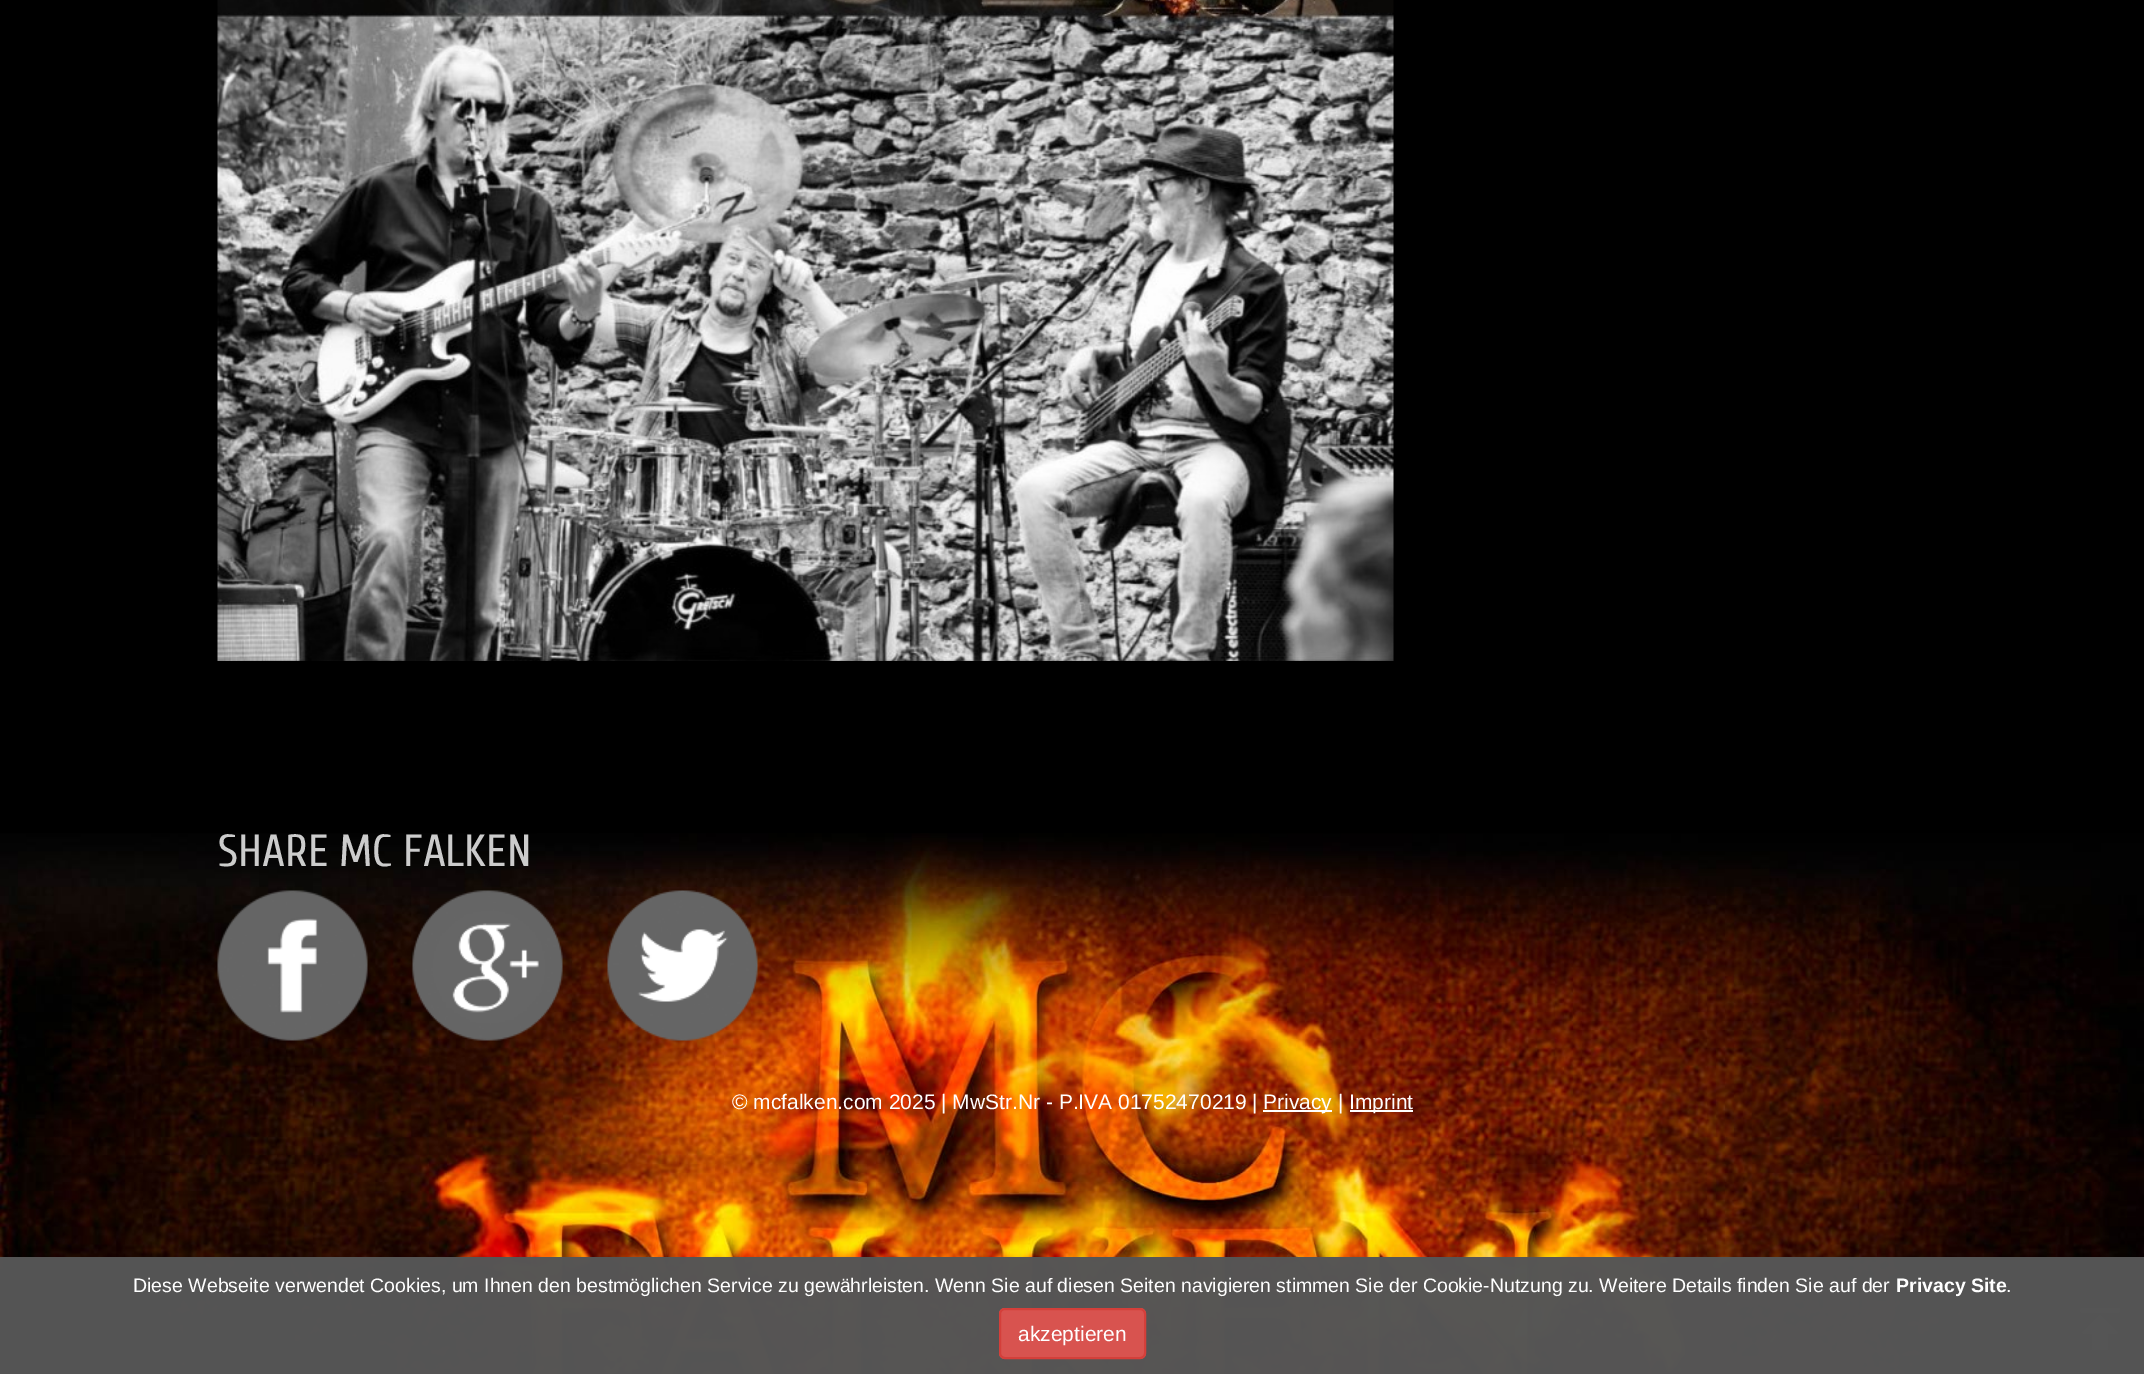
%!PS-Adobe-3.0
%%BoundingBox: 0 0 2144 1374
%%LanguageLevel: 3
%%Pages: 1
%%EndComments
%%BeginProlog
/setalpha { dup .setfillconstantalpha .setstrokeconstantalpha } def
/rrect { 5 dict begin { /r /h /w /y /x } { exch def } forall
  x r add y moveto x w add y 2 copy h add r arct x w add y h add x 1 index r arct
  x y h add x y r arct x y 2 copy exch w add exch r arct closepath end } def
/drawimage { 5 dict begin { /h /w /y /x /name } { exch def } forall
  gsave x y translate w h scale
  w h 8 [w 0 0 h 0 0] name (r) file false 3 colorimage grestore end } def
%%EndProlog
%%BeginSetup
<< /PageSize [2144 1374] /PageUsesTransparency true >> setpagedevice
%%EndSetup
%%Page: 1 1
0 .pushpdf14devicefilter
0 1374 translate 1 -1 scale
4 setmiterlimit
0 setgray
0 0 2144 1374 rectfill
(images/1.raw) 217 0 1177 661 drawimage
(images/2.raw) 0 833 2144 541 drawimage
(images/3.raw) 217 890 151 151 drawimage
(images/4.raw) 412 890 151 151 drawimage
(images/5.raw) 607 890 151 151 drawimage
1 setgray
1263 1110 69 2 rectfill
1350 1110 63 2 rectfill
(images/6.raw) 2080 1307 42 44 drawimage
0.99 setalpha
0.333 setgray
0 1257 2144 117 rectfill
1 setalpha
0.847 0.325 0.31 setrgbcolor
999 1308 147 51 6 rrect fill
0.99 setalpha
0.831 0.247 0.227 setrgbcolor
2 setlinewidth
1000 1309 145 49 5 rrect stroke
/Cuprum-Regular [45 0 0 -45 0 0] selectfont
1 setalpha
0.8 setgray
218 866 moveto (SHARE MC FALKEN) show
/LiberationSans-Regular [21 0 0 -21 0 0] selectfont
1 setgray
732 1109 moveto (© mcfalken.com 2025 | MwStr.Nr - P.IVA 01752470219 |) show
1263 1109 moveto (Privacy |) show
1349 1109 moveto (Imprint) show
/LiberationSans-Regular [19.5 0 0 -19.5 0 0] selectfont
133 1292 moveto (Diese Webseite verwendet Cookies, um Ihnen den bestmöglichen Service zu gewährleisten. Wenn Sie auf diesen Seiten navigieren stimmen Sie der Cookie-Nutzung zu. Weitere Details finden Sie auf der) show
/LiberationSans-Bold [19.5 0 0 -19.5 0 0] selectfont
1896 1292 moveto (Privacy Site) show
/LiberationSans-Regular [19.5 0 0 -19.5 0 0] selectfont
2006 1292 moveto (.) show
/LiberationSans-Regular [21 0 0 -21 0 0] selectfont
1018 1341 moveto (akzeptieren) show
.poppdf14devicefilter showpage
%%EOF
